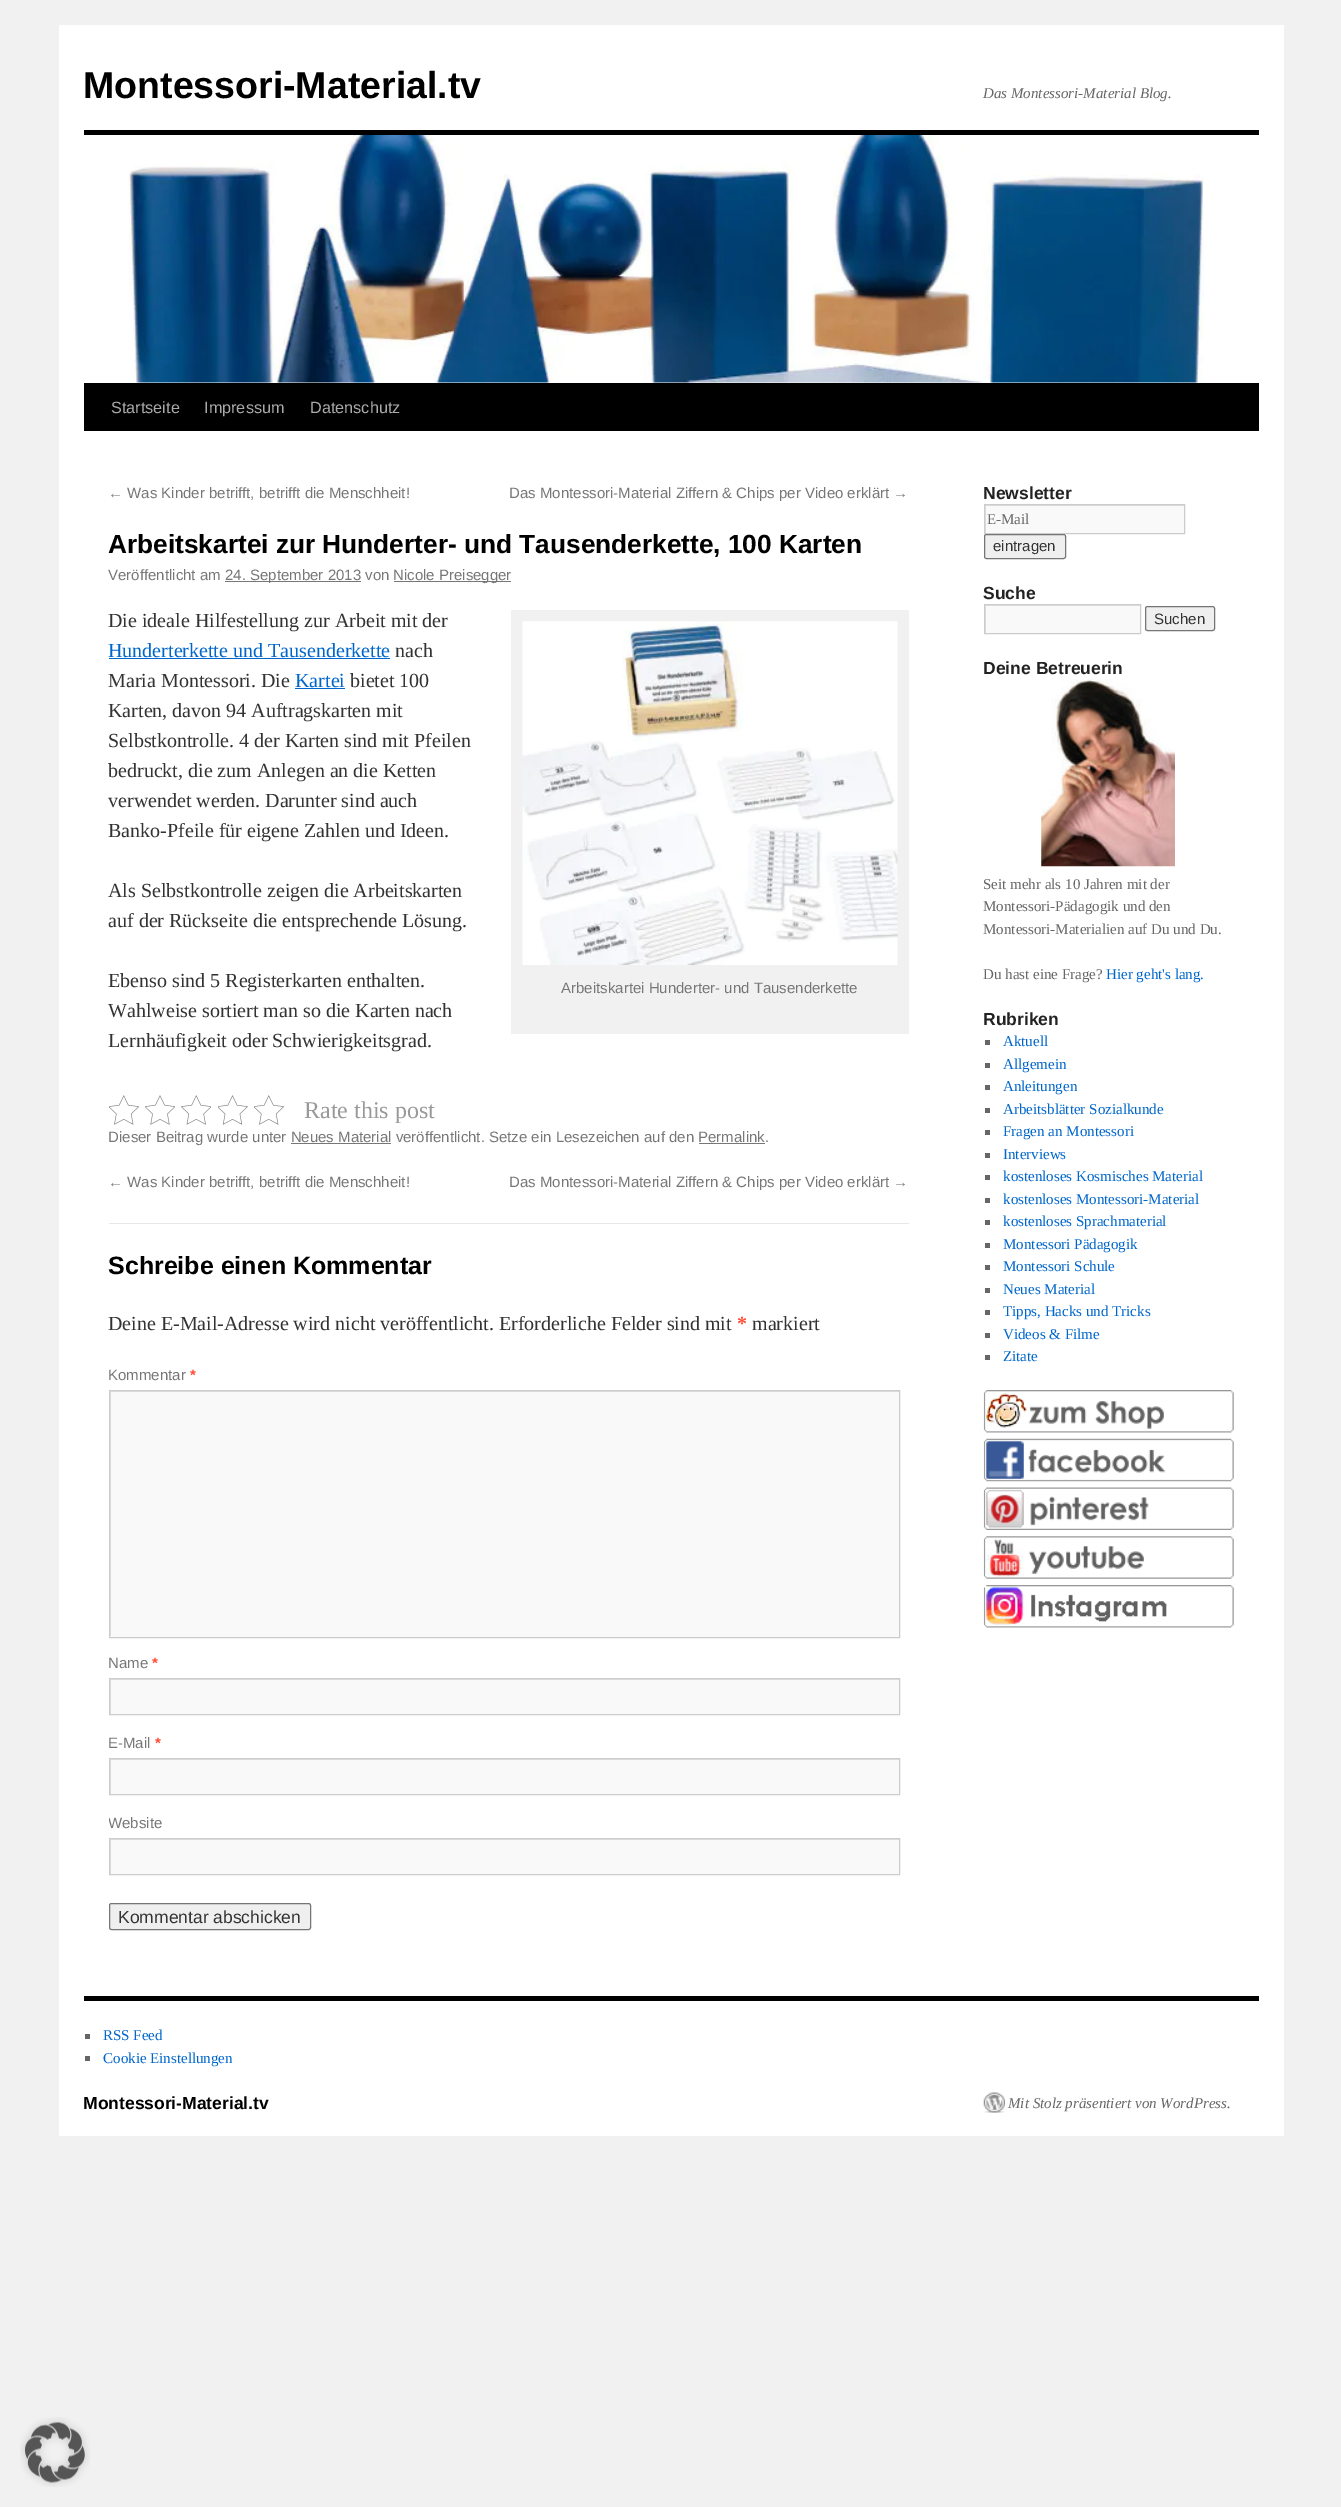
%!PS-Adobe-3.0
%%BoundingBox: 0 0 1341 2507
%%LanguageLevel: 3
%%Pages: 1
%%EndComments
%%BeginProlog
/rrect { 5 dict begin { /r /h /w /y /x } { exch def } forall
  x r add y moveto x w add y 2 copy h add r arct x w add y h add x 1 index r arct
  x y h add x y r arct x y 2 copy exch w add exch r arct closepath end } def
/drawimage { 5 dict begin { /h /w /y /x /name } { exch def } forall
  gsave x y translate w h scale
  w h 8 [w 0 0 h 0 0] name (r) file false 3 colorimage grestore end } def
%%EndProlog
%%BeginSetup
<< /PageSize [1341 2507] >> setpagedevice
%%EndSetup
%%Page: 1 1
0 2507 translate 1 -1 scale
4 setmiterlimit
0.945 setgray
0 0 1341 2507 rectfill
1 setgray
59 25 1225 2111 rectfill
0 setgray
84 130 1175 5 rectfill
84 383 1175 48 rectfill
(images/1.raw) 128 135 1076 248 drawimage
0.467 setgray
225 581 136 1 rectfill
394 581 117 1 rectfill
0 0.4 0.8 setrgbcolor
109 658 281 1 rectfill
295 688 50 1 rectfill
0.945 setgray
511 610 398 424 rectfill
(images/2.raw) 522 621 376 344 drawimage
(images/3.raw) 109 1095 30 30 drawimage
(images/4.raw) 145 1095 30 30 drawimage
(images/5.raw) 181 1095 30 30 drawimage
(images/6.raw) 218 1095 30 30 drawimage
(images/3.raw) 254 1095 30 30 drawimage
0.467 setgray
291 1143 100 1 rectfill
699 1143 66 1 rectfill
0.906 setgray
109 1223 800 1 rectfill
0.976 setgray
110 1392 789 245 rectfill
gsave
110 1391 789 245 rectclip
0.878 setgray
newpath -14 1268 moveto 1022 1268 lineto 1022 1760 lineto -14 1760 lineto closepath 111 1392 moveto 900 1392 lineto 900 1638 lineto 111 1638 lineto closepath eofill
grestore
0.8 setgray
109.5 1390.5 790 247 rectstroke
0.976 setgray
111 1680 788 34 rectfill
gsave
110 1679 789 35 rectclip
0.878 setgray
newpath -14 1555 moveto 1022 1555 lineto 1022 1838 lineto -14 1838 lineto closepath 111 1680 moveto 900 1680 lineto 900 1715 lineto 111 1715 lineto closepath eofill
grestore
0.8 setgray
109.5 1678.5 790 36 rectstroke
0.976 setgray
111 1760 788 34 rectfill
gsave
110 1759 789 35 rectclip
0.878 setgray
newpath -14 1635 moveto 1022 1635 lineto 1022 1918 lineto -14 1918 lineto closepath 111 1760 moveto 900 1760 lineto 900 1795 lineto 111 1795 lineto closepath eofill
grestore
0.8 setgray
109.5 1758.5 790 36 rectstroke
0.976 setgray
111 1840 788 34 rectfill
gsave
110 1839 789 35 rectclip
0.878 setgray
newpath -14 1715 moveto 1022 1715 lineto 1022 1998 lineto -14 1998 lineto closepath 111 1840 moveto 900 1840 lineto 900 1875 lineto 111 1875 lineto closepath eofill
grestore
0.8 setgray
109.5 1838.5 790 36 rectstroke
0.937 setgray
109.5 1903.5 201 26 2 rrect gsave fill grestore
0.463 setgray
stroke
0.976 setgray
986 506 198 27 rectfill
gsave
985 505 199 28 rectclip
0.878 setgray
newpath 861 381 moveto 1308 381 lineto 1308 656 lineto 861 656 lineto closepath 986 506 moveto 1185 506 lineto 1185 534 lineto 986 534 lineto closepath eofill
grestore
0.8 setgray
984.5 504.5 200 29 rectstroke
0.937 setgray
984.5 534.5 81 24 2 rrect gsave fill grestore
0.463 setgray
stroke
0.976 setgray
986 606 154 27 rectfill
gsave
985 605 155 28 rectclip
0.878 setgray
newpath 861 481 moveto 1264 481 lineto 1264 756 lineto 861 756 lineto closepath 986 606 moveto 1141 606 lineto 1141 634 lineto 986 634 lineto closepath eofill
grestore
0.8 setgray
984.5 604.5 156 29 rectstroke
0.937 setgray
1145.5 606.5 69 24 2 rrect gsave fill grestore
0.463 setgray
stroke
(images/7.raw) 1041 679 134 188 drawimage
0.4 setgray
985 1040 5 5 rectfill
985 1063 5 5 rectfill
985 1085 5 5 rectfill
985 1108 5 5 rectfill
985 1130 5 5 rectfill
985 1153 5 5 rectfill
985 1175 5 5 rectfill
985 1198 5 5 rectfill
985 1220 5 5 rectfill
985 1243 5 5 rectfill
985 1265 5 5 rectfill
985 1288 5 5 rectfill
985 1310 5 5 rectfill
985 1333 5 5 rectfill
985 1355 5 5 rectfill
(images/8.raw) 983 1390 251 43 drawimage
(images/9.raw) 983 1438 251 44 drawimage
(images/10.raw) 983 1487 251 43 drawimage
(images/11.raw) 983 1536 251 43 drawimage
(images/12.raw) 983 1585 251 43 drawimage
0 setgray
84 1996 1175 5 rectfill
0.4 setgray
85 2034 5 5 rectfill
85 2056 5 5 rectfill
(images/13.raw) 983 2092 22 21 drawimage
(images/14.raw) 20 2417 70 70 drawimage
/LiberationSans-Bold [37.5 0 0 -37.5 0 0] selectfont
0 setgray
83 98 moveto (Montessori-Material.tv) show
/LiberationSerif-Italic [15 0 0 -15 0 0] selectfont
0.4 setgray
983 98 moveto (Das Montessori-Material Blog.) show
/LiberationSans-Regular [16.25 0 0 -16.25 0 0] selectfont
0.667 setgray
111 413 moveto (Startseite) show
204 413 moveto (Impressum) show
310 413 moveto (Datenschutz) show
/LiberationSans-Regular [15 0 0 -15 0 0] selectfont
0.467 setgray
108 498 moveto (← Was Kinder betrifft, betrifft die Menschheit!) show
509 498 moveto (Das Montessori-Material Ziffern & Chips per Video erklärt →) show
/LiberationSans-Bold [26.25 0 0 -26.25 0 0] selectfont
0 setgray
108 553 moveto (Arbeitskartei zur Hunderter- und Tausenderkette, 100 Karten) show
/LiberationSans-Regular [15 0 0 -15 0 0] selectfont
0.467 setgray
108 580 moveto (Veröffentlicht am) show
225 580 moveto (24. September 2013 von) show
393 580 moveto (Nicole Preisegger) show
/LiberationSerif-Regular [20 0 0 -20 0 0] selectfont
0.2 setgray
108 627 moveto (Die ideale Hilfestellung zur Arbeit mit der) show
0 0.4 0.8 setrgbcolor
108 657 moveto (Hunderterkette und Tausenderkette) show
0.2 setgray
395 657 moveto (nach) show
108 687 moveto (Maria Montessori. Die) show
0 0.4 0.8 setrgbcolor
295 687 moveto (Kartei) show
0.2 setgray
350 687 moveto (bietet 100) show
108 717 moveto (Karten, davon 94 Auftragskarten mit) show
108 747 moveto (Selbstkontrolle. 4 der Karten sind mit Pfeilen) show
108 777 moveto (bedruckt, die zum Anlegen an die Ketten) show
108 807 moveto (verwendet werden. Darunter sind auch) show
108 837 moveto (Banko-Pfeile für eigene Zahlen und Ideen.) show
108 897 moveto (Als Selbstkontrolle zeigen die Arbeitskarten) show
108 927 moveto (auf der Rückseite die entsprechende Lösung.) show
108 987 moveto (Ebenso sind 5 Registerkarten enthalten.) show
108 1017 moveto (Wahlweise sortiert man so die Karten nach) show
108 1047 moveto (Lernhäufigkeit oder Schwierigkeitsgrad.) show
/LiberationSans-Regular [15 0 0 -15 0 0] selectfont
0.467 setgray
561 993 moveto (Arbeitskartei Hunderter- und Tausenderkette) show
/LiberationSerif-Regular [24 0 0 -24 0 0] selectfont
0.6 setgray
304 1118 moveto (Rate this post) show
/LiberationSans-Regular [15 0 0 -15 0 0] selectfont
0.467 setgray
108 1142 moveto (Dieser Beitrag wurde unter Neues Material veröffentlicht. Setze ein Lesezeichen auf den Permalink.) show
108 1187 moveto (← Was Kinder betrifft, betrifft die Menschheit!) show
509 1187 moveto (Das Montessori-Material Ziffern & Chips per Video erklärt →) show
/LiberationSans-Bold [25 0 0 -25 0 0] selectfont
0 setgray
108 1274 moveto (Schreibe einen Kommentar) show
/LiberationSerif-Regular [20 0 0 -20 0 0] selectfont
0.2 setgray
108 1330 moveto (Deine E-Mail-Adresse wird nicht veröffentlicht. Erforderliche Felder sind mit) show
/LiberationSerif-Bold [20 0 0 -20 0 0] selectfont
1 0.294 0.2 setrgbcolor
737 1330 moveto (*) show
/LiberationSerif-Regular [20 0 0 -20 0 0] selectfont
0.2 setgray
752 1330 moveto (markiert) show
/LiberationSans-Regular [15 0 0 -15 0 0] selectfont
0.467 setgray
108 1380 moveto (Kommentar) show
/LiberationSans-Bold [15 0 0 -15 0 0] selectfont
1 0.294 0.2 setrgbcolor
190 1380 moveto (*) show
/LiberationSans-Regular [15 0 0 -15 0 0] selectfont
0.467 setgray
108 1668 moveto (Name) show
/LiberationSans-Bold [15 0 0 -15 0 0] selectfont
1 0.294 0.2 setrgbcolor
152 1668 moveto (*) show
/LiberationSans-Regular [15 0 0 -15 0 0] selectfont
0.467 setgray
108 1748 moveto (E-Mail) show
/LiberationSans-Bold [15 0 0 -15 0 0] selectfont
1 0.294 0.2 setrgbcolor
155 1748 moveto (*) show
gsave
109 1224 800 732 rectclip
/LiberationSans-Regular [15 0 0 -15 0 0] selectfont
0.467 setgray
108 1828 moveto (Website) show
grestore
/LiberationSans-Regular [17.5 0 0 -17.5 0 0] selectfont
0.2 setgray
118 1923 moveto (Kommentar abschicken) show
/LiberationSans-Bold [17.5 0 0 -17.5 0 0] selectfont
0.133 setgray
983 499 moveto (Newsletter) show
/LiberationSerif-Regular [15 0 0 -15 0 0] selectfont
0.4 setgray
987 524 moveto (E-Mail) show
/LiberationSans-Regular [15 0 0 -15 0 0] selectfont
0.2 setgray
993 551 moveto (eintragen) show
/LiberationSans-Bold [17.5 0 0 -17.5 0 0] selectfont
0.133 setgray
983 599 moveto (Suche) show
/LiberationSans-Regular [15 0 0 -15 0 0] selectfont
0.2 setgray
1154 624 moveto (Suchen) show
/LiberationSans-Bold [17.5 0 0 -17.5 0 0] selectfont
0.133 setgray
983 674 moveto (Deine Betreuerin) show
/LiberationSerif-Regular [15 0 0 -15 0 0] selectfont
0.4 setgray
983 889 moveto (Seit mehr als 10 Jahren mit der) show
983 911 moveto (Montessori-Pädagogik und den) show
983 934 moveto (Montessori-Materialien auf Du und Du.) show
983 979 moveto (Du hast eine Frage?) show
0 0.4 0.8 setrgbcolor
1106 979 moveto (Hier geht's lang.) show
/LiberationSans-Bold [17.5 0 0 -17.5 0 0] selectfont
0.133 setgray
983 1025 moveto (Rubriken) show
/LiberationSerif-Regular [15 0 0 -15 0 0] selectfont
0 0.4 0.8 setrgbcolor
1003 1046 moveto (Aktuell) show
1003 1069 moveto (Allgemein) show
1003 1091 moveto (Anleitungen) show
1003 1114 moveto (Arbeitsblätter Sozialkunde) show
1003 1136 moveto (Fragen an Montessori) show
1003 1159 moveto (Interviews) show
1003 1181 moveto (kostenloses Kosmisches Material) show
1003 1204 moveto (kostenloses Montessori-Material) show
1003 1226 moveto (kostenloses Sprachmaterial) show
1003 1249 moveto (Montessori Pädagogik) show
1003 1271 moveto (Montessori Schule) show
1003 1294 moveto (Neues Material) show
1003 1316 moveto (Tipps, Hacks und Tricks) show
1003 1339 moveto (Videos & Filme) show
1003 1361 moveto (Zitate) show
103 2040 moveto (RSS Feed) show
103 2063 moveto (Cookie Einstellungen) show
/LiberationSans-Bold [17.5 0 0 -17.5 0 0] selectfont
0 setgray
83 2109 moveto (Montessori-Material.tv) show
/LiberationSerif-Italic [15 0 0 -15 0 0] selectfont
0.4 setgray
1008 2108 moveto (Mit Stolz präsentiert von WordPress.) show
showpage
%%EOF
